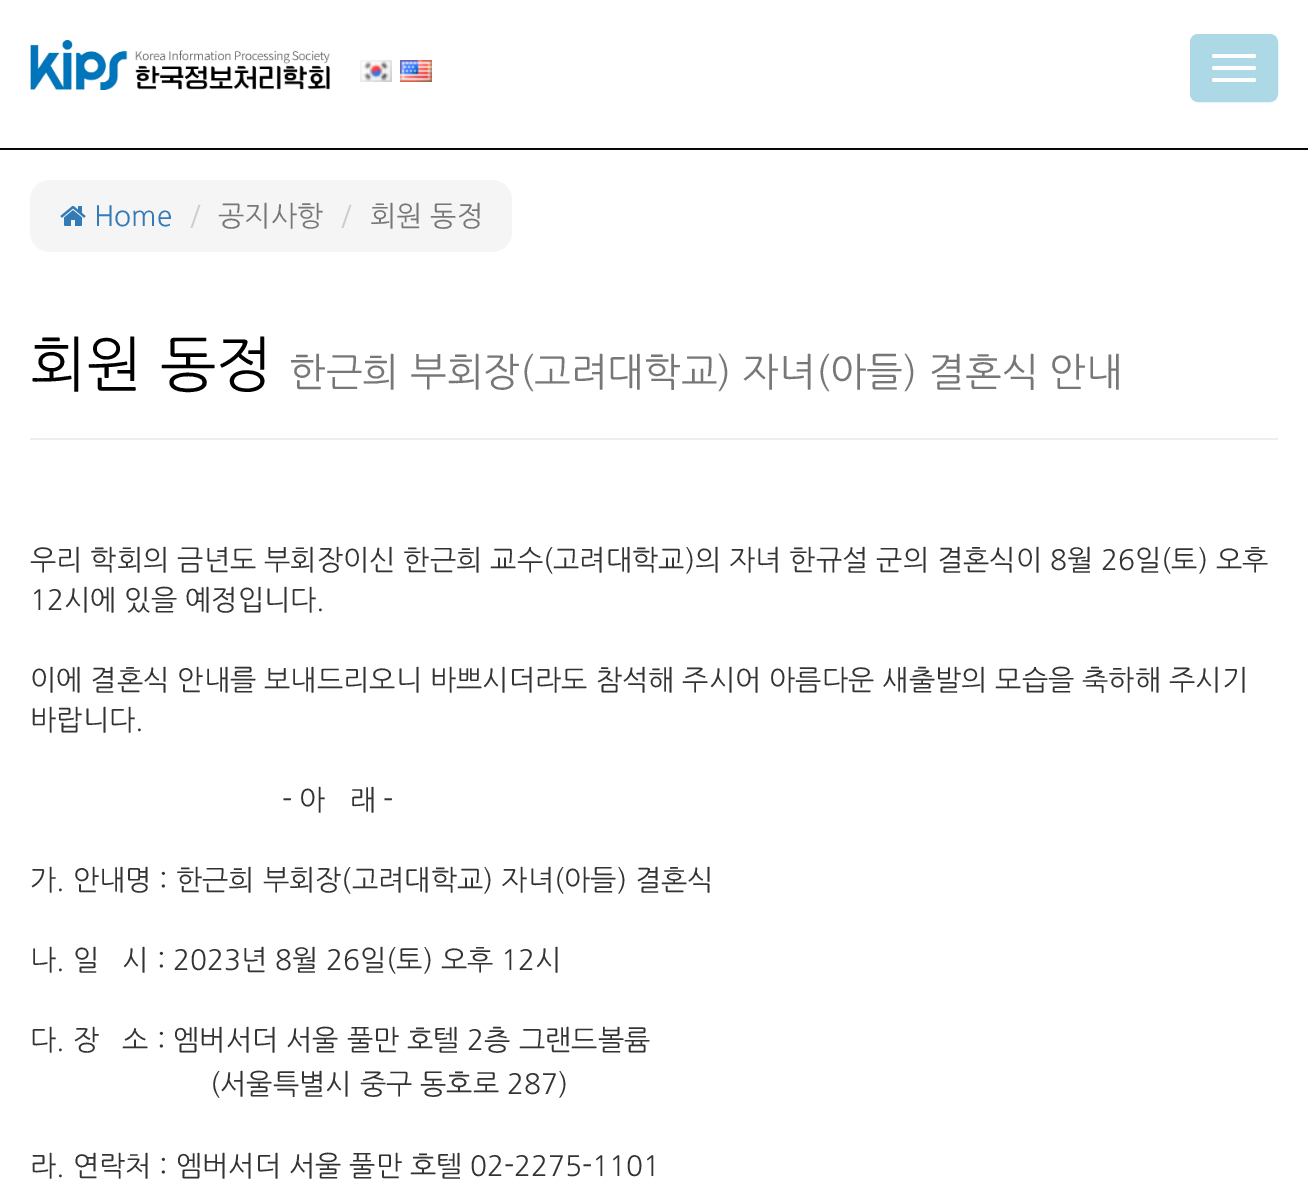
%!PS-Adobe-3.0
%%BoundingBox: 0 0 1308 1200
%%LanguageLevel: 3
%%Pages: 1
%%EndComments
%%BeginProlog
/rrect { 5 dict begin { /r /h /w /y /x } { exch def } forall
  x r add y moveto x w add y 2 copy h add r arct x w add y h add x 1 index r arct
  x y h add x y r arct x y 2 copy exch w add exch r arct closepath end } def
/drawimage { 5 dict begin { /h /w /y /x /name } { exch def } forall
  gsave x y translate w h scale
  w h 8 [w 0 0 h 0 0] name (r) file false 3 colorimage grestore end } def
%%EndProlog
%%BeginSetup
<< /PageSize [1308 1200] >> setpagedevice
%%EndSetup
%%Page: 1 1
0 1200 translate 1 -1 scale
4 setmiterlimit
1 setgray
0 0 1308 1200 rectfill
0.031 setgray
0 148 1308 2 rectfill
(images/1.raw) 30 40 300 50 drawimage
(images/2.raw) 360 60 32 22 drawimage
(images/3.raw) 400 60 32 22 drawimage
0.678 0.847 0.902 setrgbcolor
1191 35 86 66 7 rrect gsave fill grestore
2 setlinewidth
stroke
1 setgray
1212 54 44 4 2 rrect fill
1212 66 44 4 2 rrect fill
1212 78 44 4 2 rrect fill
0.961 setgray
30 180 482 72 20 rrect fill
(images/4.raw) 60 206 26 20 drawimage
0.933 setgray
30 438 1248 2 rectfill
/NanumGothic-Regular [28 0 0 -28 0 0] selectfont
0.2 0.478 0.718 setrgbcolor
94 226 moveto (Home) show
0.8 setgray
190 226 moveto (/) show
0.467 setgray
218 226 moveto (공지사항) show
0.8 setgray
341 226 moveto (/) show
0.467 setgray
370 226 moveto (회원 동정) show
/NanumGothic-Regular [60 0 0 -60 0 0] selectfont
0 setgray
30 386 moveto (회원 동정) show
/NanumGothic-Regular [39 0 0 -39 0 0] selectfont
0.467 setgray
289 386 moveto (한근희 부회장\(고려대학교\) 자녀\(아들\) 결혼식 안내) show
/NanumGothic-Regular [28 0 0 -28 0 0] selectfont
0.2 setgray
30 570 moveto (우리 학회의 금년도 부회장이신 한근희 교수\(고려대학교\)의 자녀 한규설 군의 결혼식이 8월 26일\(토\) 오후) show
30 610 moveto (12시에 있을 예정입니다.) show
30 690 moveto (이에 결혼식 안내를 보내드리오니 바쁘시더라도 참석해 주시어 아름다운 새출발의 모습을 축하해 주시기) show
30 730 moveto (바랍니다.) show
282 810 moveto -1 0 32 (- 아) widthshow
350 810 moveto -1 0 32 (래 -) widthshow
30 890 moveto (가. 안내명 : 한근희 부회장\(고려대학교\) 자녀\(아들\) 결혼식) show
30 970 moveto (나. 일   시 : 2023년 8월 26일\(토\) 오후 12시) show
30 1050 moveto (다. 장   소 : 엠버서더 서울 풀만 호텔 2층 그랜드볼륨) show
210 1094 moveto (\(서울특별시 중구 동호로 287\)) show
30 1176 moveto (라. 연락처 : 엠버서더 서울 풀만 호텔 02-2275-1101) show
showpage
%%EOF
